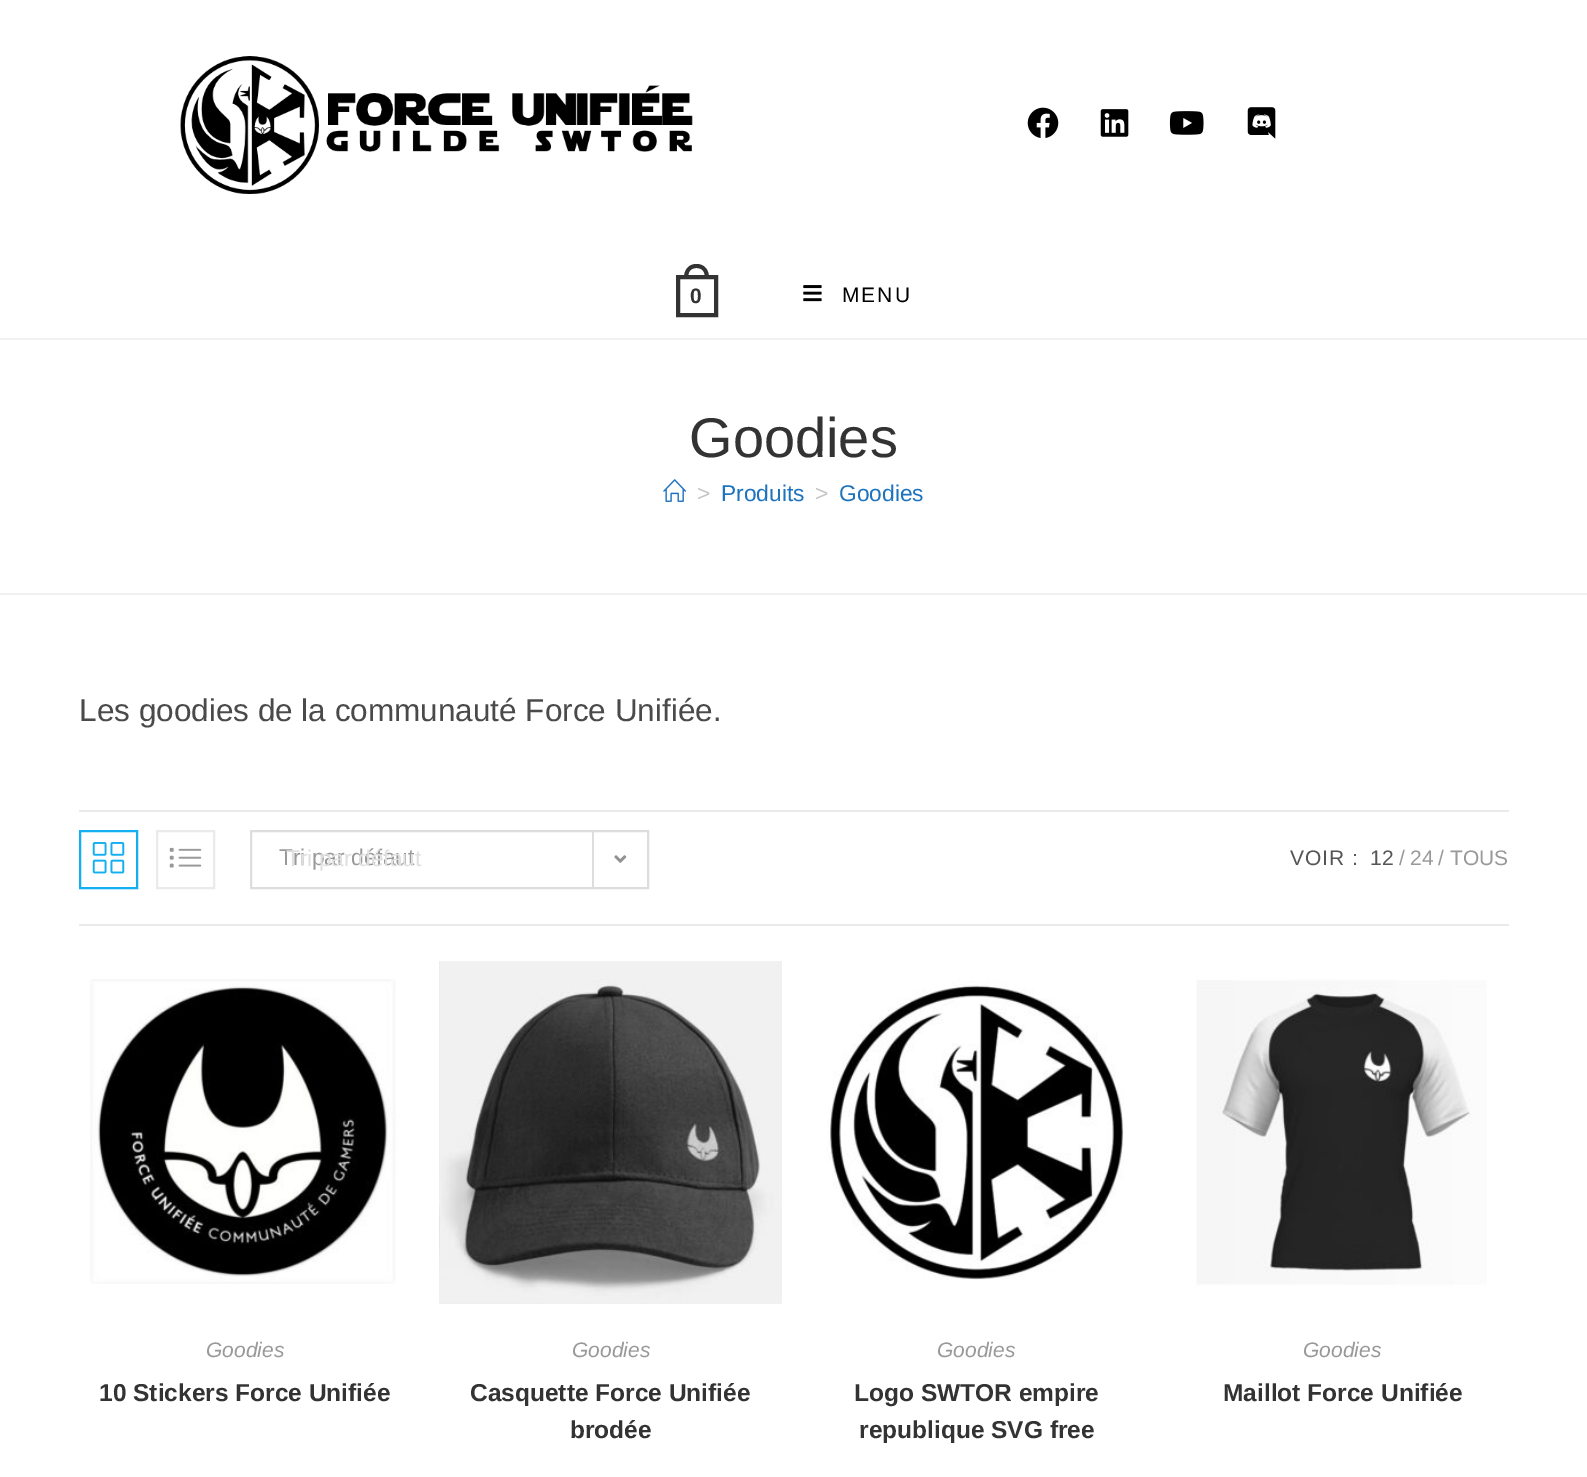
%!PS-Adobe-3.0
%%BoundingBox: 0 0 1587 1477
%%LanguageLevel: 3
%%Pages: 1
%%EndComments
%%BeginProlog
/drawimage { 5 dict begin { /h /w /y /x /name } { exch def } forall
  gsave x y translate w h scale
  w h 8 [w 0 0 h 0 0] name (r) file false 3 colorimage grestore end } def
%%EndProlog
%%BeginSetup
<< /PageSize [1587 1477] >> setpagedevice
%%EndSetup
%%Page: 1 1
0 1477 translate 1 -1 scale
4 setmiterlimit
1 setgray
0 0 1587 1477 rectfill
0.945 setgray
0 338 1587 2 rectfill
(images/1.raw) 180 56 513 138 drawimage
(images/2.raw) 1027 107 32 31 drawimage
(images/3.raw) 1100 109 29 28 drawimage
(images/4.raw) 1169 111 35 24 drawimage
(images/5.raw) 1247 107 29 32 drawimage
0.2 setgray
4 setlinewidth
678 277 38 38 rectstroke
newpath 696.5 264 moveto 705 264 709 270.5 709 278 curveto 684 278 lineto 684 270.5 688 264 696.5 264 curveto closepath 696.5 268 moveto 703 268 705 272.5 705 278 curveto 688 278 lineto 688 272.5 690 268 696.5 268 curveto closepath eofill
(images/6.raw) 803 285 19 17 drawimage
0.945 setgray
0 593 1587 2 rectfill
(images/7.raw) 663 479 23 23 drawimage
0.918 setgray
79 810 1430 2 rectfill
79 924 1430 2 rectfill
0.075 0.686 0.941 setrgbcolor
2 setlinewidth
80 831 57 57 rectstroke
(images/8.raw) 92 842 33 32 drawimage
0.918 setgray
157 831 57 57 rectstroke
(images/9.raw) 169 847 33 21 drawimage
0.867 setgray
251 831 397 57 rectstroke
592 831 2 56 rectfill
(images/10.raw) 614 855 13 8 drawimage
(images/11.raw) 90 979 306 305 drawimage
(images/12.raw) 439 961 343 343 drawimage
(images/13.raw) 439 961 343 342 drawimage
(images/14.raw) 827 981 297 299 drawimage
(images/15.raw) 1196 978 291 309 drawimage
/LiberationSans-Bold [21 0 0 -21 0 0] selectfont
0.2 setgray
690 303 moveto 2 0 (0) ashow
/LiberationSans-Regular [21 0 0 -21 0 0] selectfont
0 setgray
842 302 moveto 2 0 (MENU) ashow
/LiberationSans-Regular [56 0 0 -56 0 0] selectfont
0.2 setgray
689 457 moveto (Goodies) show
/LiberationSans-Regular [22.75 0 0 -22.75 0 0] selectfont
0.776 setgray
697 501 moveto (>) show
0.118 0.451 0.745 setrgbcolor
721 501 moveto (Produits) show
0.776 setgray
815 501 moveto (>) show
0.118 0.451 0.745 setrgbcolor
839 501 moveto (Goodies) show
/LiberationSans-Regular [31.5 0 0 -31.5 0 0] selectfont
0.29 setgray
79 721 moveto (Les goodies de la communauté Force Unifiée.) show
/LiberationSans-Regular [22.75 0 0 -22.75 0 0] selectfont
0.6 setgray
279 865 moveto (Tri par défaut) show
0.878 setgray
286 866 moveto (Tri par défaut) show
/LiberationSans-Regular [21 0 0 -21 0 0] selectfont
0.333 setgray
1290 865 moveto 1 0 (VOIR :) ashow
1370 865 moveto (12) show
0.6 setgray
1399 865 moveto (/) show
1410 865 moveto (24) show
1438 865 moveto (/) show
1450 865 moveto (TOUS) show
/LiberationSans-Italic [21 0 0 -21 0 0] selectfont
206 1357 moveto (Goodies) show
/LiberationSans-Bold [24.5 0 0 -24.5 0 0] selectfont
0.2 setgray
99 1401 moveto (10 Stickers Force Unifiée) show
/LiberationSans-Italic [21 0 0 -21 0 0] selectfont
0.6 setgray
572 1357 moveto (Goodies) show
/LiberationSans-Bold [24.5 0 0 -24.5 0 0] selectfont
0.2 setgray
470 1401 moveto (Casquette Force Unifiée) show
570 1438 moveto (brodée) show
/LiberationSans-Italic [21 0 0 -21 0 0] selectfont
0.6 setgray
937 1357 moveto (Goodies) show
/LiberationSans-Bold [24.5 0 0 -24.5 0 0] selectfont
0.2 setgray
854 1401 moveto (Logo SWTOR empire) show
859 1438 moveto (republique SVG free) show
/LiberationSans-Italic [21 0 0 -21 0 0] selectfont
0.6 setgray
1303 1357 moveto (Goodies) show
/LiberationSans-Bold [24.5 0 0 -24.5 0 0] selectfont
0.2 setgray
1223 1401 moveto (Maillot Force Unifiée) show
showpage
%%EOF
